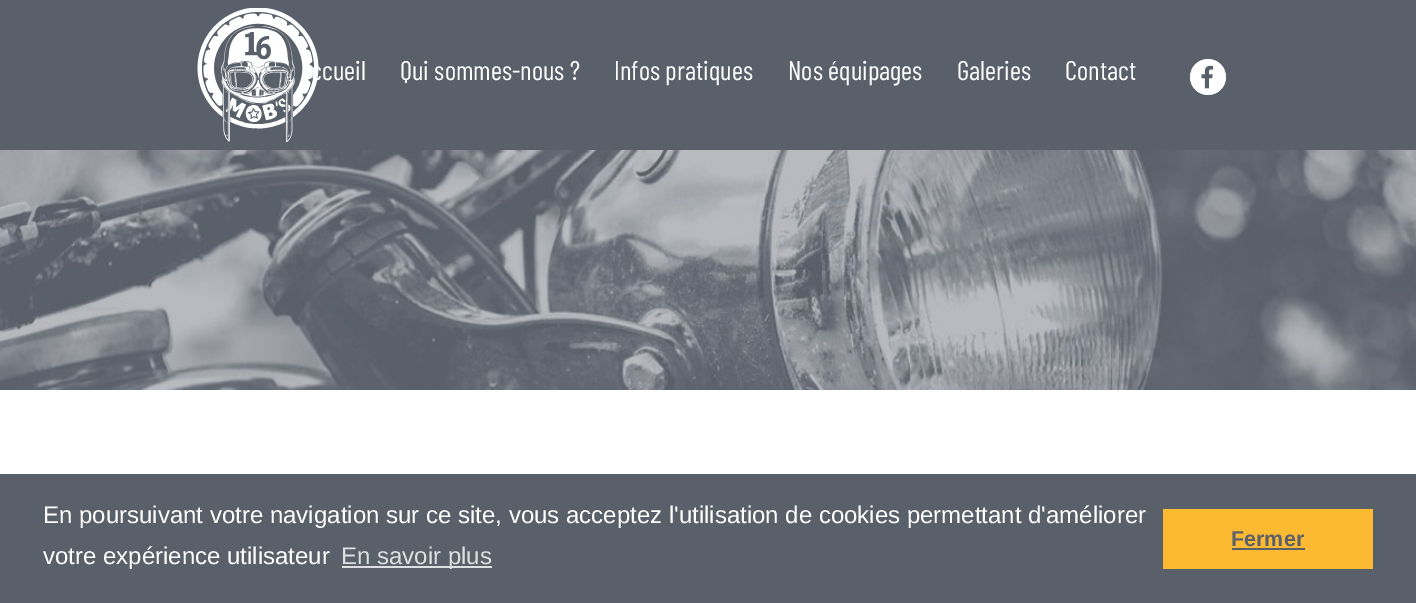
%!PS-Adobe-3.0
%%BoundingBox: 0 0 1416 603
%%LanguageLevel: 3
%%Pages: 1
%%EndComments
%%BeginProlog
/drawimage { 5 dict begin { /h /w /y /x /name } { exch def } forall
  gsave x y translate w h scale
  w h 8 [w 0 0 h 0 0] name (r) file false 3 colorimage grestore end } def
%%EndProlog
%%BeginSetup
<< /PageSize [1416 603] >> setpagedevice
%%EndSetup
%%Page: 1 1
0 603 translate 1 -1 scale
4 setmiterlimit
1 setgray
0 0 1416 603 rectfill
0.353 0.376 0.416 setrgbcolor
0 0 1416 150 rectfill
(images/1.raw) 197 8 122 135 drawimage
1 setgray
newpath 1208 77 18 0 360 arc closepath fill
(images/2.raw) 1201 65 13 24 drawimage
(images/3.raw) 0 150 1416 240 drawimage
0.353 0.376 0.416 setrgbcolor
0 474 1416 129 rectfill
0.871 0.875 0.882 setrgbcolor
342 566 150 2 rectfill
0.984 0.729 0.196 setrgbcolor
1163 509 210 60 rectfill
0.353 0.376 0.416 setrgbcolor
1232 548 73 2 rectfill
/BarlowCondensed-Regular [27 0 0 -27 0 0] selectfont
1 setgray
311 80 moveto (ccueil) show
400 80 moveto (Qui sommes-nous ?) show
614 80 moveto (Infos pratiques) show
788 80 moveto (Nos équipages) show
957 80 moveto (Galeries) show
1065 80 moveto (Contact) show
/LiberationSans-Regular [24 0 0 -24 0 0] selectfont
43 523 moveto (En poursuivant votre navigation sur ce site, vous acceptez l'utilisation de cookies permettant d'améliorer) show
43 564 moveto (votre expérience utilisateur) show
0.871 0.875 0.882 setrgbcolor
341 564 moveto (En savoir plus) show
/LiberationSans-Bold [21.5 0 0 -21.5 0 0] selectfont
0.353 0.376 0.416 setrgbcolor
1231 546 moveto (Fermer) show
showpage
%%EOF
